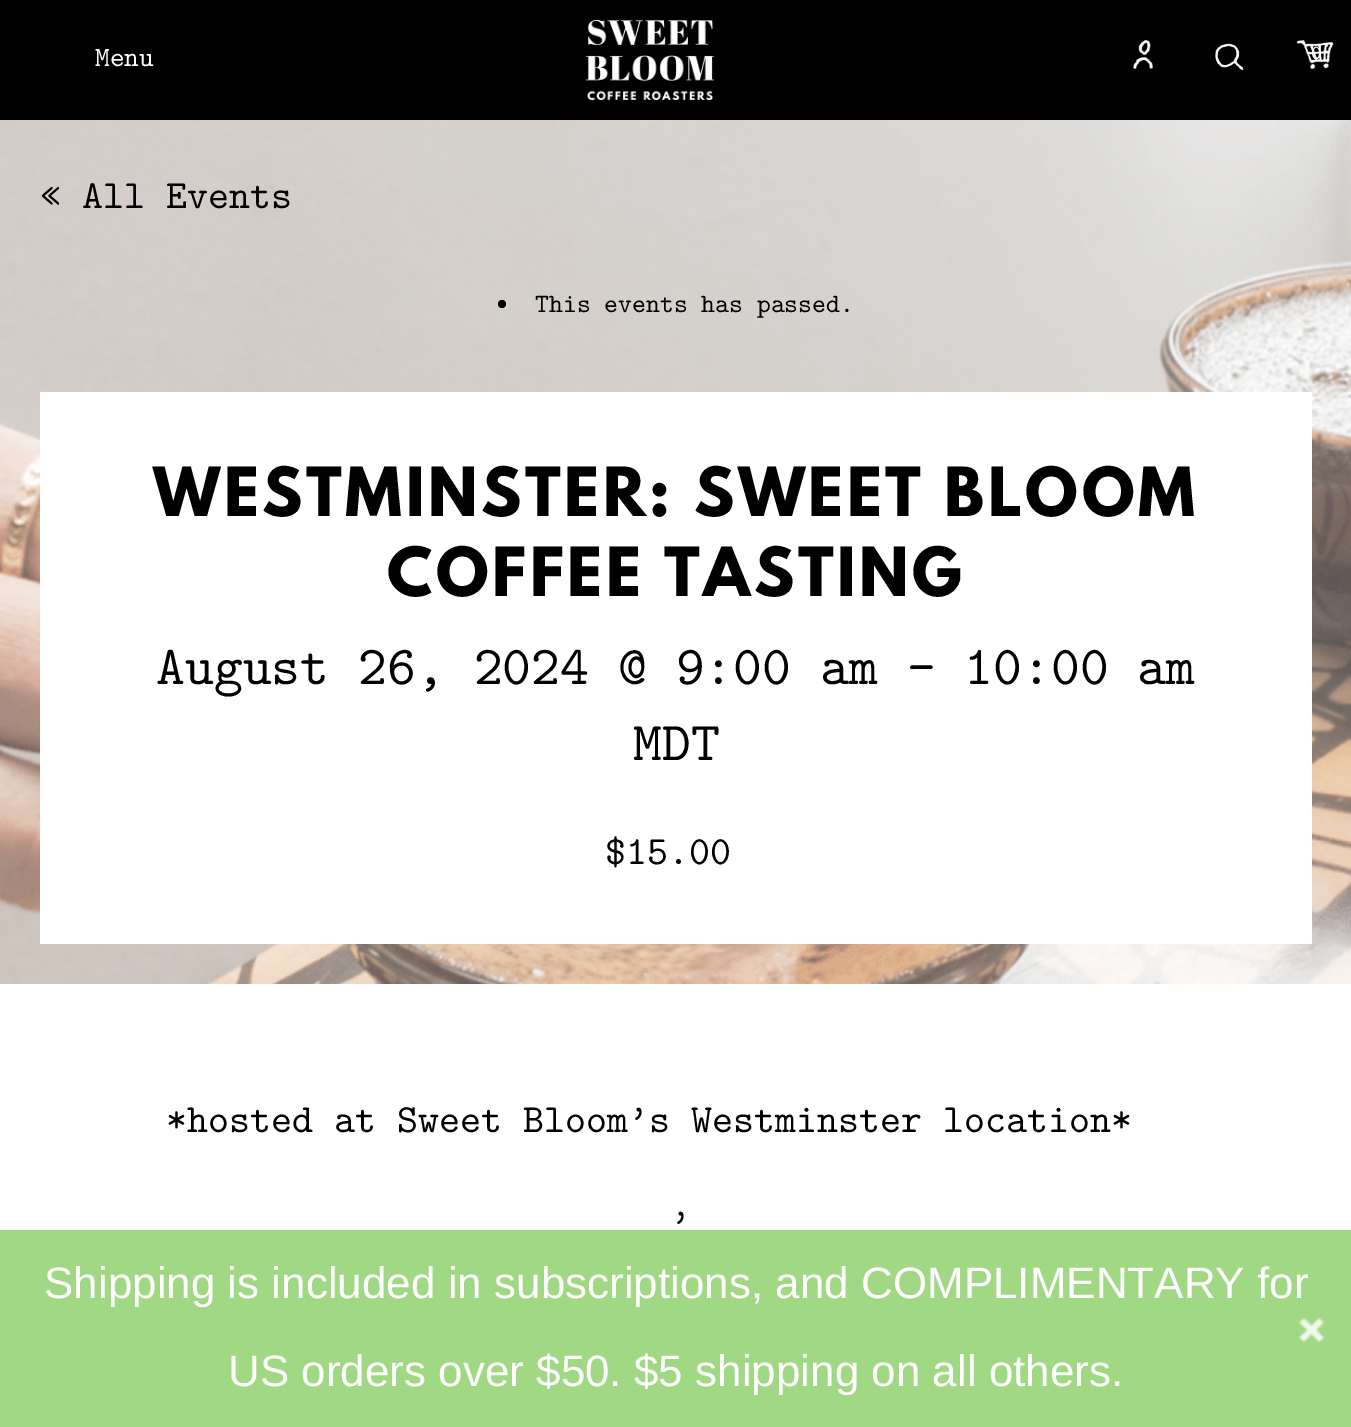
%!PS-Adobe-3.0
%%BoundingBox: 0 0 1351 1427
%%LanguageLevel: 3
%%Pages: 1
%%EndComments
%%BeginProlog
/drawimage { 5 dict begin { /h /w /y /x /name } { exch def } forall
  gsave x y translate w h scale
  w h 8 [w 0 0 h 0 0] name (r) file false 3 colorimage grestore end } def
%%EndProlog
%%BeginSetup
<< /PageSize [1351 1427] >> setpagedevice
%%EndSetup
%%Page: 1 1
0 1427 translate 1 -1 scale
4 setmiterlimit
1 setgray
0 0 1351 1427 rectfill
0 setgray
0 0 1351 120 rectfill
(images/1.raw) 586 20 128 80 drawimage
(images/2.raw) 1133 40 20 29 drawimage
(images/3.raw) 1215 43 29 28 drawimage
(images/4.raw) 1296 40 38 29 drawimage
(images/5.raw) 0 120 1351 864 drawimage
newpath 502 304 4 0 360 arc closepath fill
1 setgray
40 392 1272 552 rectfill
0.631 0.847 0.518 setrgbcolor
0 1230 1351 197 rectfill
(images/6.raw) 1299 1317 26 26 drawimage
/LatinModernMono-Regular [28 0 0 -28 0 0] selectfont
1 setgray
95 66 moveto (Menu) show
/LatinModernMono-Regular [20 0 0 -20 0 0] selectfont
1311 59 moveto (0) show
/LatinModernMono-Regular [40 0 0 -40 0 0] selectfont
0 setgray
40 208 moveto (« All Events) show
/LatinModernMono-Regular [26.4 0 0 -26.4 0 0] selectfont
535 312 moveto (This events has passed.) show
/LeagueSpartan-Bold [60 0 0 -60 0 0] selectfont
153 516 moveto 3.6 0 (WESTMINSTER: SWEET BLOOM) ashow
387 596 moveto 3.6 0 (COFFEE TASTING) ashow
/LatinModernMono-Regular [55 0 0 -55 0 0] selectfont
156 684 moveto (August 26, 2024 @ 9:00 am - 10:00 am) show
633 760 moveto (MDT) show
/LatinModernMono-Regular [40 0 0 -40 0 0] selectfont
605 864 moveto ($15.00) show
166 1132 moveto (*hosted at Sweet Bloom’s Westminster location*) show
670 1236 moveto (’) show
/LiberationSans-Regular [44 0 0 -44 0 0] selectfont
1 setgray
44 1298 moveto (Shipping is included in subscriptions, and COMPLIMENTARY for) show
228 1386 moveto (US orders over $50. $5 shipping on all others.) show
showpage
%%EOF
